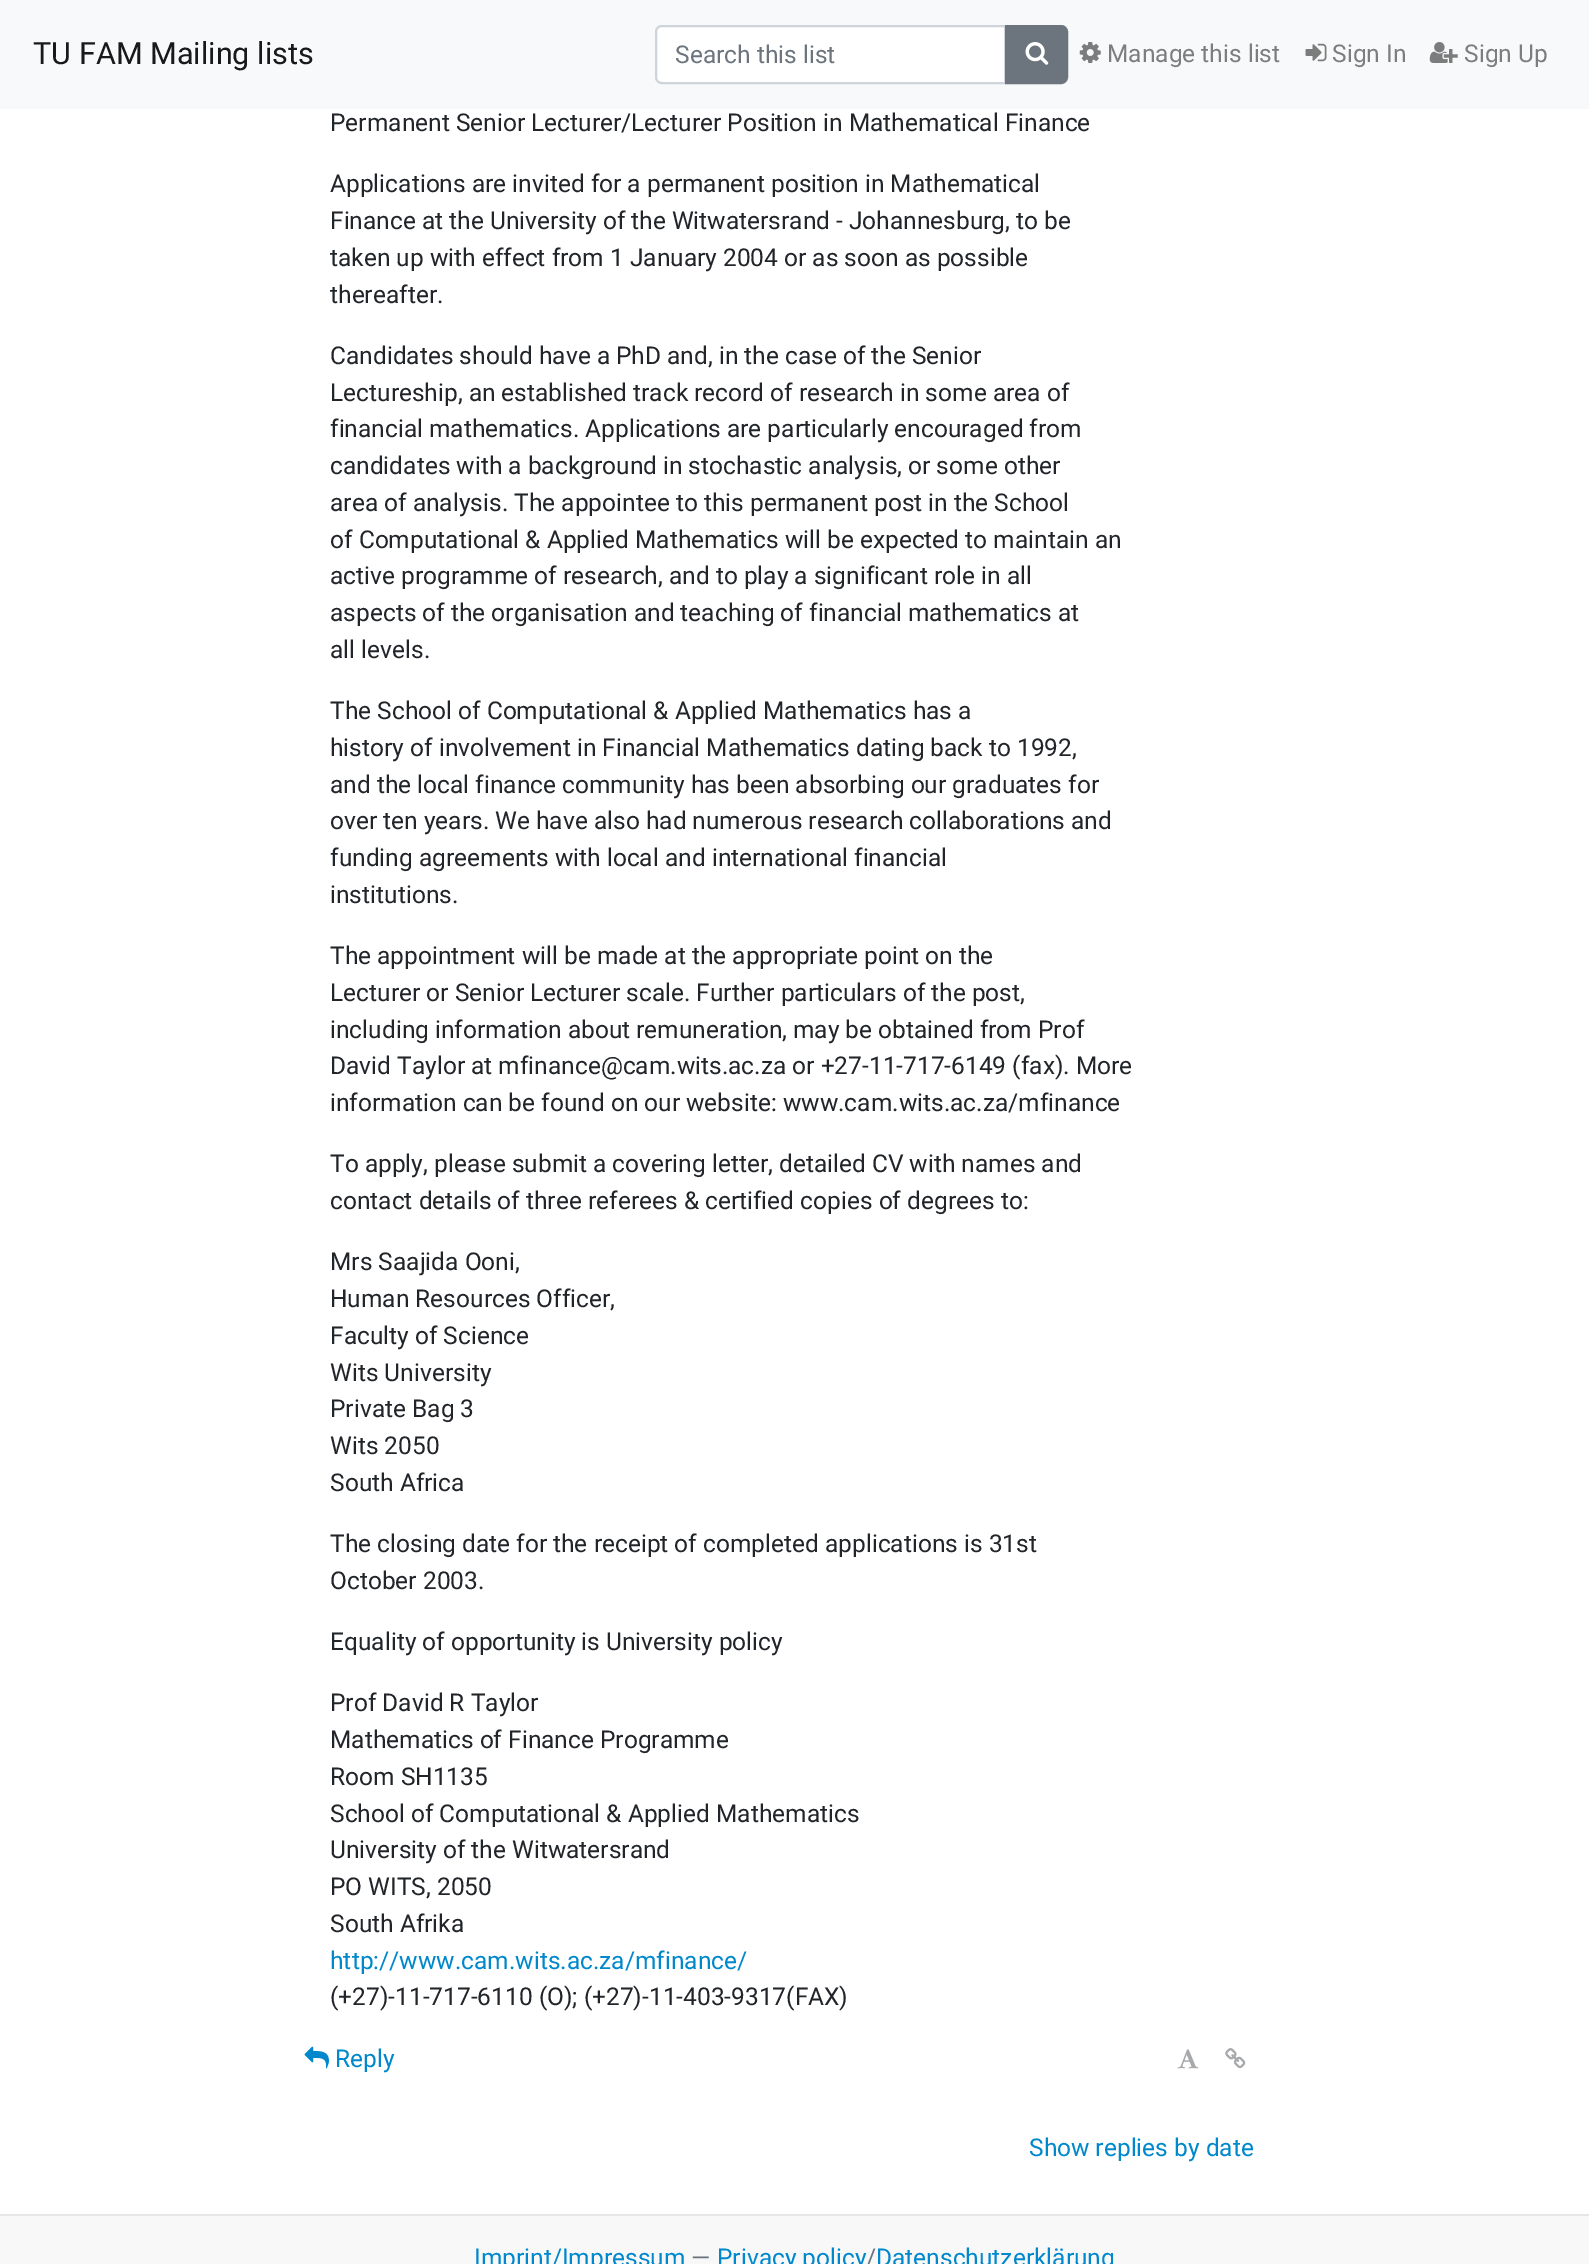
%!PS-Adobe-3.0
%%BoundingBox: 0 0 1589 2264
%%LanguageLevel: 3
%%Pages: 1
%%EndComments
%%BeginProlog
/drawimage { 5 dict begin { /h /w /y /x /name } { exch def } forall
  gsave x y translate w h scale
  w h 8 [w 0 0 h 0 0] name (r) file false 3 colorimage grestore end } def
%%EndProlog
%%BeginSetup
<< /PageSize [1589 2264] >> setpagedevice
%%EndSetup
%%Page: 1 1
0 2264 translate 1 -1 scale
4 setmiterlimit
1 setgray
0 0 1589 2264 rectfill
0.973 0.976 0.98 setrgbcolor
0 0 1589 109 rectfill
1 setgray
newpath 660 26 moveto 1005 26 lineto 1005 82 lineto 660 82 lineto 658 82 656 80 656 78 curveto 656 30 lineto 656 28 658 26 660 26 curveto closepath fill
0.808 0.831 0.855 setrgbcolor
2 setlinewidth
newpath 662 26 moveto 1005 26 lineto 1005 83 lineto 662 83 lineto 658.5 83 656 80.5 656 77 curveto 656 32 lineto 656 28.5 658.5 26 662 26 curveto closepath stroke
0.424 0.459 0.49 setrgbcolor
newpath 1006 26 moveto 1061 26 lineto 1064.5 26 1067 28.5 1067 32 curveto 1067 77 lineto 1067 80.5 1064.5 83 1061 83 curveto 1006 83 lineto closepath gsave fill grestore
stroke
(images/1.raw) 1025 42 24 23 drawimage
(images/2.raw) 1079 42 22 21 drawimage
(images/3.raw) 1305 43 22 19 drawimage
(images/4.raw) 1429 42 29 21 drawimage
(images/5.raw) 304 2046 25 23 drawimage
(images/6.raw) 1177 2049 22 20 drawimage
(images/7.raw) 1225 2048 21 21 drawimage
0.973 setgray
0 2216 1589 48 rectfill
0.906 setgray
0 2214 1589 2 rectfill
/Roboto-Regular [30.6 0 0 -30.6 0 0] selectfont
0.098 setgray
33 64 moveto (TU FAM Mailing lists) show
/Roboto-Regular [24.5 0 0 -24.5 0 0] selectfont
0.424 0.459 0.49 setrgbcolor
675 63 moveto (Search this list) show
0.486 0.49 0.49 setrgbcolor
1107 62 moveto (Manage this list) show
1332 62 moveto (Sign In) show
1464 62 moveto (Sign Up) show
0.129 0.145 0.161 setrgbcolor
330 131 moveto (Permanent Senior Lecturer/Lecturer Position in Mathematical Finance) show
330 192 moveto (Applications are invited for a permanent position in Mathematical) show
330 229 moveto (Finance at the University of the Witwatersrand - Johannesburg, to be) show
330 266 moveto (taken up with effect from 1 January 2004 or as soon as possible) show
330 303 moveto (thereafter.) show
330 364 moveto (Candidates should have a PhD and, in the case of the Senior) show
330 401 moveto (Lectureship, an established track record of research in some area of) show
330 437 moveto (financial mathematics. Applications are particularly encouraged from) show
330 474 moveto (candidates with a background in stochastic analysis, or some other) show
330 511 moveto (area of analysis. The appointee to this permanent post in the School) show
330 548 moveto (of Computational & Applied Mathematics will be expected to maintain an) show
330 584 moveto (active programme of research, and to play a significant role in all) show
330 621 moveto (aspects of the organisation and teaching of financial mathematics at) show
330 658 moveto (all levels.) show
330 719 moveto (The School of Computational & Applied Mathematics has a) show
330 756 moveto (history of involvement in Financial Mathematics dating back to 1992,) show
330 793 moveto (and the local finance community has been absorbing our graduates for) show
330 829 moveto (over ten years. We have also had numerous research collaborations and) show
330 866 moveto (funding agreements with local and international financial) show
330 903 moveto (institutions.) show
330 964 moveto (The appointment will be made at the appropriate point on the) show
330 1001 moveto (Lecturer or Senior Lecturer scale. Further particulars of the post,) show
330 1038 moveto (including information about remuneration, may be obtained from Prof) show
330 1074 moveto (David Taylor at mfinance@cam.wits.ac.za or +27-11-717-6149 \(fax\). More) show
330 1111 moveto (information can be found on our website: www.cam.wits.ac.za/mfinance) show
330 1172 moveto (To apply, please submit a covering letter, detailed CV with names and) show
330 1209 moveto (contact details of three referees & certified copies of degrees to:) show
330 1270 moveto (Mrs Saajida Ooni,) show
330 1307 moveto (Human Resources Officer,) show
330 1344 moveto (Faculty of Science) show
330 1381 moveto (Wits University) show
330 1417 moveto (Private Bag 3) show
330 1454 moveto (Wits 2050) show
330 1491 moveto (South Africa) show
330 1552 moveto (The closing date for the receipt of completed applications is 31st) show
330 1589 moveto (October 2003.) show
330 1650 moveto (Equality of opportunity is University policy) show
330 1711 moveto (Prof David R Taylor) show
330 1748 moveto (Mathematics of Finance Programme) show
330 1785 moveto (Room SH1135) show
330 1822 moveto (School of Computational & Applied Mathematics) show
330 1858 moveto (University of the Witwatersrand) show
330 1895 moveto (PO WITS, 2050) show
330 1932 moveto (South Afrika) show
0 0.533 0.8 setrgbcolor
330 1969 moveto (http://www.cam.wits.ac.za/mfinance/) show
0.129 0.145 0.161 setrgbcolor
330 2005 moveto (\(+27\)-11-717-6110 \(O\); \(+27\)-11-403-9317\(FAX\)) show
0 0.533 0.8 setrgbcolor
335 2067 moveto (Reply) show
1029 2156 moveto (Show replies by date) show
474 2266 moveto (Imprint/Impressum) show
0.424 0.459 0.49 setrgbcolor
691 2266 moveto (—) show
0 0.533 0.8 setrgbcolor
717 2266 moveto (Privacy policy) show
0.424 0.459 0.49 setrgbcolor
866 2266 moveto (/) show
0 0.533 0.8 setrgbcolor
876 2266 moveto (Datenschutzerklärung) show
showpage
%%EOF
